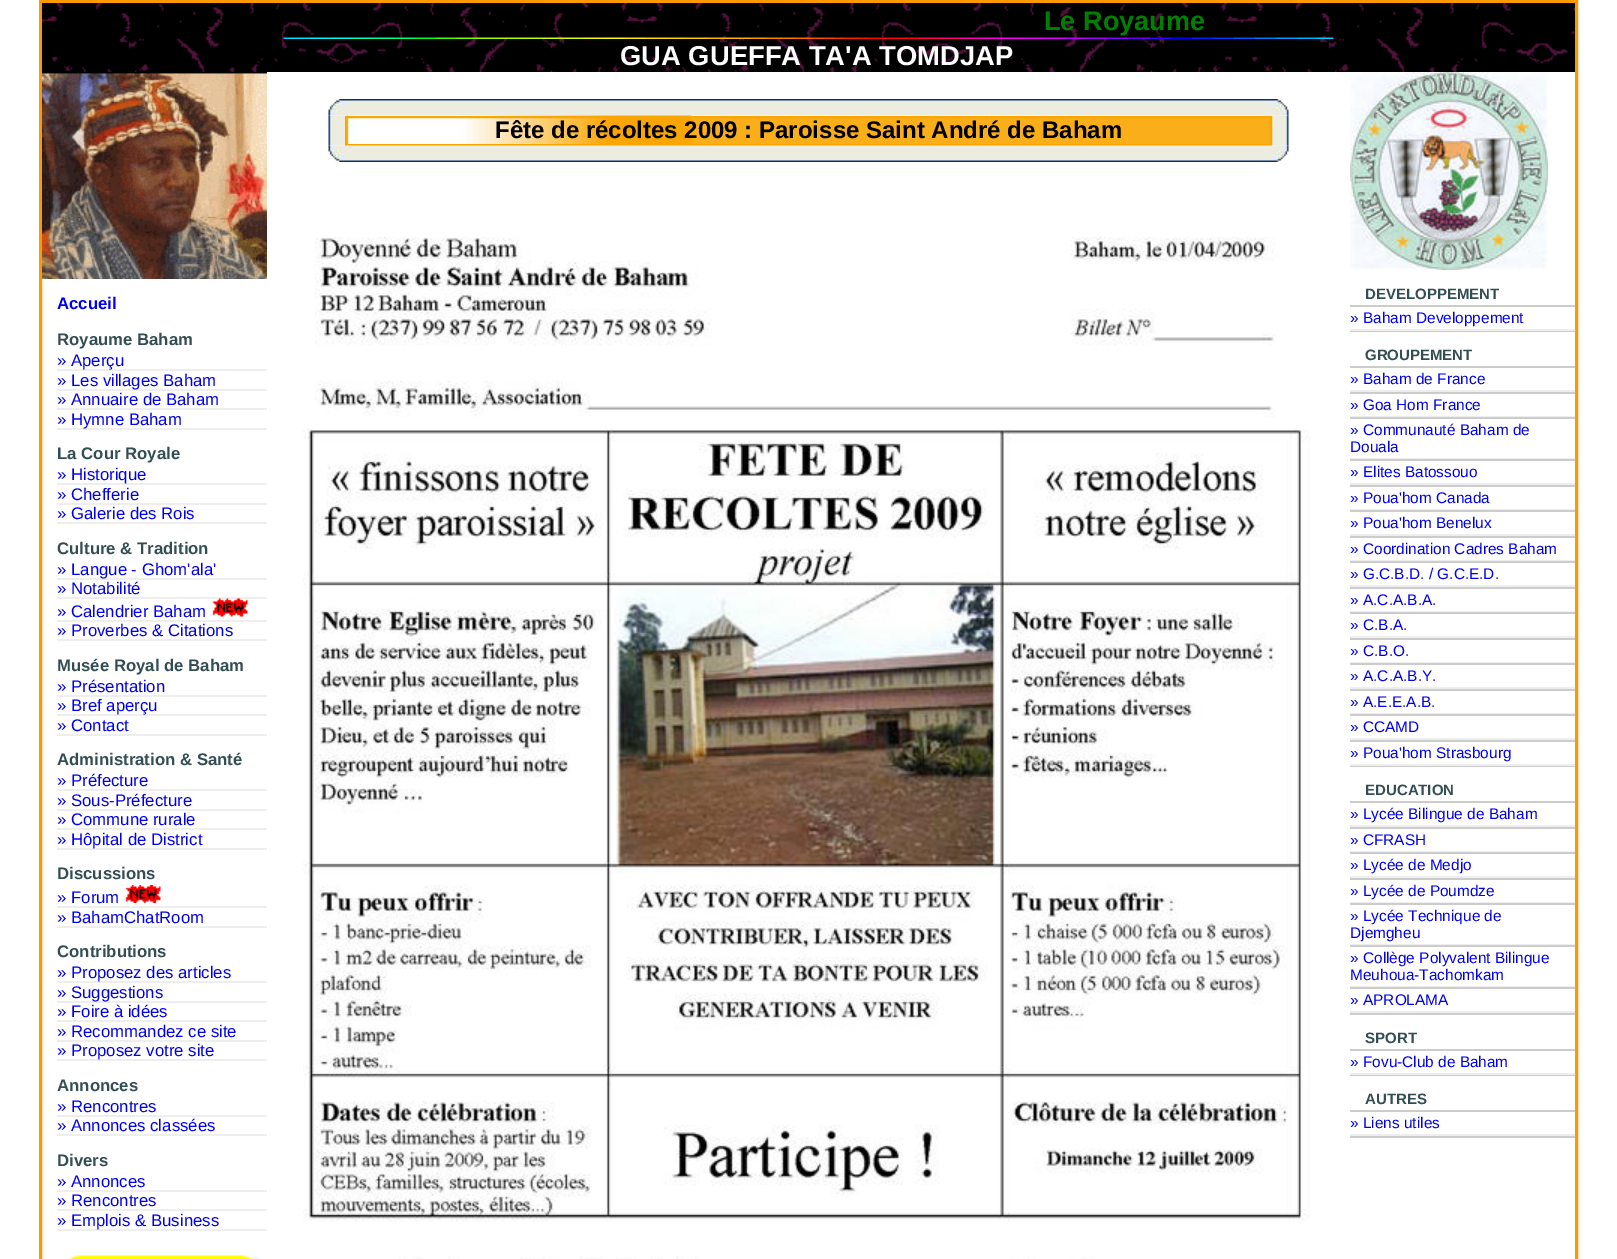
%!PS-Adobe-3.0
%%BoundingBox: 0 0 1617 1259
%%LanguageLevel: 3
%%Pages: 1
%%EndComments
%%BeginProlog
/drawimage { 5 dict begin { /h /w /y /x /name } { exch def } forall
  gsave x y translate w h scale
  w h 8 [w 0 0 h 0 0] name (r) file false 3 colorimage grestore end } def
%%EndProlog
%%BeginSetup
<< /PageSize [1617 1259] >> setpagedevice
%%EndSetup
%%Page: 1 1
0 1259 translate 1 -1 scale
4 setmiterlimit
1 setgray
0 0 1617 1259 rectfill
1 0.6 0 setrgbcolor
3 setlinewidth
40.5 1.5 1536 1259 rectstroke
(images/1.raw) 42 3 1533 69 drawimage
(images/2.raw) 283 37 1051 2 drawimage
(images/6.raw) 328 115 17 31 drawimage
(images/3.raw) 328 99 17 17 drawimage
(images/4.raw) 345 99 927 17 drawimage
(images/8.raw) 1272 115 17 31 drawimage
(images/5.raw) 1272 99 17 17 drawimage
0.98 0.682 0.102 setrgbcolor
691 118 579 26 rectfill
(images/7.raw) 346 115 346 29 drawimage
0.98 0.651 0.008 setrgbcolor
2 setlinewidth
346 117 925 28 rectstroke
(images/9.raw) 328 145 17 17 drawimage
(images/10.raw) 345 145 927 17 drawimage
(images/11.raw) 1272 145 17 17 drawimage
(images/12.raw) 303 237 1008 1022 drawimage
(images/13.raw) 42 72 225 207 drawimage
0.933 setgray
57 369 210 2 rectfill
57 389 210 2 rectfill
57 408 210 2 rectfill
57 428 210 2 rectfill
57 483 210 2 rectfill
57 503 210 2 rectfill
57 522 210 2 rectfill
57 578 210 2 rectfill
57 597 210 2 rectfill
57 620 210 2 rectfill
(images/14.raw) 212 598 36 19 drawimage
57 639 210 2 rectfill
57 695 210 2 rectfill
57 714 210 2 rectfill
57 734 210 2 rectfill
57 789 210 2 rectfill
57 809 210 2 rectfill
57 828 210 2 rectfill
57 848 210 2 rectfill
57 906 210 2 rectfill
(images/15.raw) 125 885 36 18 drawimage
57 926 210 2 rectfill
57 981 210 2 rectfill
57 1001 210 2 rectfill
57 1020 210 2 rectfill
57 1040 210 2 rectfill
57 1059 210 2 rectfill
57 1115 210 2 rectfill
57 1134 210 2 rectfill
57 1190 210 2 rectfill
57 1209 210 2 rectfill
57 1229 210 2 rectfill
(images/16.raw) 68 1255 192 4 drawimage
(images/17.raw) 1350 72 198 198 drawimage
0.8 setgray
1350 331 225 1 rectfill
0.933 setgray
1350 329 225 2 rectfill
0.8 setgray
1350 305 225 2 rectfill
1350 766 225 1 rectfill
0.933 setgray
1350 390 225 2 rectfill
0.8 setgray
1350 366 225 2 rectfill
0.933 setgray
1350 416 225 1 rectfill
0.8 setgray
1350 392 225 2 rectfill
0.933 setgray
1350 458 225 1 rectfill
0.8 setgray
1350 417 225 2 rectfill
0.933 setgray
1350 483 225 2 rectfill
0.8 setgray
1350 459 225 2 rectfill
0.933 setgray
1350 509 225 1 rectfill
0.8 setgray
1350 485 225 2 rectfill
0.933 setgray
1350 534 225 2 rectfill
0.8 setgray
1350 510 225 2 rectfill
0.933 setgray
1350 560 225 1 rectfill
0.8 setgray
1350 536 225 2 rectfill
0.933 setgray
1350 585 225 2 rectfill
0.8 setgray
1350 561 225 2 rectfill
0.933 setgray
1350 611 225 1 rectfill
0.8 setgray
1350 587 225 2 rectfill
0.933 setgray
1350 636 225 2 rectfill
0.8 setgray
1350 612 225 2 rectfill
0.933 setgray
1350 662 225 1 rectfill
0.8 setgray
1350 638 225 2 rectfill
0.933 setgray
1350 687 225 2 rectfill
0.8 setgray
1350 663 225 2 rectfill
0.933 setgray
1350 713 225 1 rectfill
0.8 setgray
1350 689 225 2 rectfill
0.933 setgray
1350 738 225 2 rectfill
0.8 setgray
1350 714 225 2 rectfill
0.933 setgray
1350 764 225 2 rectfill
0.8 setgray
1350 740 225 2 rectfill
1350 1013 225 2 rectfill
0.933 setgray
1350 825 225 2 rectfill
0.8 setgray
1350 801 225 2 rectfill
0.933 setgray
1350 851 225 1 rectfill
0.8 setgray
1350 827 225 2 rectfill
0.933 setgray
1350 876 225 2 rectfill
0.8 setgray
1350 852 225 2 rectfill
0.933 setgray
1350 902 225 1 rectfill
0.8 setgray
1350 878 225 2 rectfill
0.933 setgray
1350 944 225 1 rectfill
0.8 setgray
1350 903 225 2 rectfill
0.933 setgray
1350 986 225 1 rectfill
0.8 setgray
1350 945 225 2 rectfill
0.933 setgray
1350 1011 225 2 rectfill
0.8 setgray
1350 987 225 2 rectfill
1350 1075 225 1 rectfill
0.933 setgray
1350 1073 225 2 rectfill
0.8 setgray
1350 1049 225 2 rectfill
1350 1136 225 2 rectfill
0.933 setgray
1350 1134 225 2 rectfill
0.8 setgray
1350 1110 225 2 rectfill
/LiberationSans-Bold [27 0 0 -27 0 0] selectfont
0 0.502 0 setrgbcolor
1044 30 moveto (Le Royaume) show
/LiberationSans-Bold [27.4 0 0 -27.4 0 0] selectfont
1 setgray
620 65 moveto (GUA GUEFFA TA'A TOMDJAP) show
/LiberationSans-Bold [24 0 0 -24 0 0] selectfont
0 setgray
495 138 moveto (Fête de récoltes 2009 : Paroisse Saint André de Baham) show
/LiberationSans-Bold [16.75 0 0 -16.75 0 0] selectfont
0 0 0.933 setrgbcolor
57 309 moveto (Accueil) show
0.2 0.302 0.333 setrgbcolor
57 345 moveto (Royaume Baham) show
/LiberationSans-Regular [16.75 0 0 -16.75 0 0] selectfont
0 0 0.933 setrgbcolor
57 366 moveto (» Aperçu) show
57 386 moveto (» Les villages Baham) show
57 405 moveto (» Annuaire de Baham) show
57 425 moveto (» Hymne Baham) show
/LiberationSans-Bold [16.75 0 0 -16.75 0 0] selectfont
0.2 0.302 0.333 setrgbcolor
57 459 moveto (La Cour Royale) show
/LiberationSans-Regular [16.75 0 0 -16.75 0 0] selectfont
0 0 0.933 setrgbcolor
57 480 moveto (» Historique) show
57 500 moveto (» Chefferie) show
57 519 moveto (» Galerie des Rois) show
/LiberationSans-Bold [16.75 0 0 -16.75 0 0] selectfont
0.2 0.302 0.333 setrgbcolor
57 554 moveto (Culture & Tradition) show
/LiberationSans-Regular [16.75 0 0 -16.75 0 0] selectfont
0 0 0.933 setrgbcolor
57 575 moveto (» Langue - Ghom'ala') show
57 594 moveto (» Notabilité) show
57 617 moveto (» Calendrier Baham) show
57 636 moveto (» Proverbes & Citations) show
/LiberationSans-Bold [16.75 0 0 -16.75 0 0] selectfont
0.2 0.302 0.333 setrgbcolor
57 671 moveto (Musée Royal de Baham) show
/LiberationSans-Regular [16.75 0 0 -16.75 0 0] selectfont
0 0 0.933 setrgbcolor
57 692 moveto (» Présentation) show
57 711 moveto (» Bref aperçu) show
57 731 moveto (» Contact) show
/LiberationSans-Bold [16.75 0 0 -16.75 0 0] selectfont
0.2 0.302 0.333 setrgbcolor
57 765 moveto (Administration & Santé) show
/LiberationSans-Regular [16.75 0 0 -16.75 0 0] selectfont
0 0 0.933 setrgbcolor
57 786 moveto (» Préfecture) show
57 806 moveto (» Sous-Préfecture) show
57 825 moveto (» Commune rurale) show
57 845 moveto (» Hôpital de District) show
/LiberationSans-Bold [16.75 0 0 -16.75 0 0] selectfont
0.2 0.302 0.333 setrgbcolor
57 879 moveto (Discussions) show
/LiberationSans-Regular [16.75 0 0 -16.75 0 0] selectfont
0 0 0.933 setrgbcolor
57 903 moveto (» Forum) show
57 923 moveto (» BahamChatRoom) show
/LiberationSans-Bold [16.75 0 0 -16.75 0 0] selectfont
0.2 0.302 0.333 setrgbcolor
57 957 moveto (Contributions) show
/LiberationSans-Regular [16.75 0 0 -16.75 0 0] selectfont
0 0 0.933 setrgbcolor
57 978 moveto (» Proposez des articles) show
57 998 moveto (» Suggestions) show
57 1017 moveto (» Foire à idées) show
57 1037 moveto (» Recommandez ce site) show
57 1056 moveto (» Proposez votre site) show
/LiberationSans-Bold [16.75 0 0 -16.75 0 0] selectfont
0.2 0.302 0.333 setrgbcolor
57 1091 moveto (Annonces) show
/LiberationSans-Regular [16.75 0 0 -16.75 0 0] selectfont
0 0 0.933 setrgbcolor
57 1112 moveto (» Rencontres) show
57 1131 moveto (» Annonces classées) show
/LiberationSans-Bold [16.75 0 0 -16.75 0 0] selectfont
0.2 0.302 0.333 setrgbcolor
57 1166 moveto (Divers) show
/LiberationSans-Regular [16.75 0 0 -16.75 0 0] selectfont
0 0 0.933 setrgbcolor
57 1187 moveto (» Annonces) show
57 1206 moveto (» Rencontres) show
57 1226 moveto (» Emplois & Business) show
/LiberationSans-Bold [15 0 0 -15 0 0] selectfont
0.2 0.302 0.333 setrgbcolor
1365 299 moveto (DEVELOPPEMENT) show
/LiberationSans-Regular [15.4 0 0 -15.4 0 0] selectfont
0 0 0.933 setrgbcolor
1350 323 moveto (» Baham Developpement) show
/LiberationSans-Bold [15 0 0 -15 0 0] selectfont
0.2 0.302 0.333 setrgbcolor
1365 360 moveto (GROUPEMENT) show
/LiberationSans-Regular [15.4 0 0 -15.4 0 0] selectfont
0 0 0.933 setrgbcolor
1350 384 moveto (» Baham de France) show
1350 410 moveto (» Goa Hom France) show
1350 435 moveto (» Communauté Baham de) show
1350 452 moveto (Douala) show
1350 477 moveto (» Elites Batossouo) show
1350 503 moveto (» Poua'hom Canada) show
1350 528 moveto (» Poua'hom Benelux) show
1350 554 moveto (» Coordination Cadres Baham) show
1350 579 moveto (» G.C.B.D. / G.C.E.D.) show
1350 605 moveto (» A.C.A.B.A.) show
1350 630 moveto (» C.B.A.) show
1350 656 moveto (» C.B.O.) show
1350 681 moveto (» A.C.A.B.Y.) show
1350 707 moveto (» A.E.E.A.B.) show
1350 732 moveto (» CCAMD) show
1350 758 moveto (» Poua'hom Strasbourg) show
/LiberationSans-Bold [15 0 0 -15 0 0] selectfont
0.2 0.302 0.333 setrgbcolor
1365 795 moveto (EDUCATION) show
/LiberationSans-Regular [15.4 0 0 -15.4 0 0] selectfont
0 0 0.933 setrgbcolor
1350 819 moveto (» Lycée Bilingue de Baham) show
1350 845 moveto (» CFRASH) show
1350 870 moveto (» Lycée de Medjo) show
1350 896 moveto (» Lycée de Poumdze) show
1350 921 moveto (» Lycée Technique de) show
1350 938 moveto (Djemgheu) show
1350 963 moveto (» Collège Polyvalent Bilingue) show
1350 980 moveto (Meuhoua-Tachomkam) show
1350 1005 moveto (» APROLAMA) show
/LiberationSans-Bold [15 0 0 -15 0 0] selectfont
0.2 0.302 0.333 setrgbcolor
1365 1043 moveto (SPORT) show
/LiberationSans-Regular [15.4 0 0 -15.4 0 0] selectfont
0 0 0.933 setrgbcolor
1350 1067 moveto (» Fovu-Club de Baham) show
/LiberationSans-Bold [15 0 0 -15 0 0] selectfont
0.2 0.302 0.333 setrgbcolor
1365 1104 moveto (AUTRES) show
/LiberationSans-Regular [15.4 0 0 -15.4 0 0] selectfont
0 0 0.933 setrgbcolor
1350 1128 moveto (» Liens utiles) show
showpage
%%EOF
